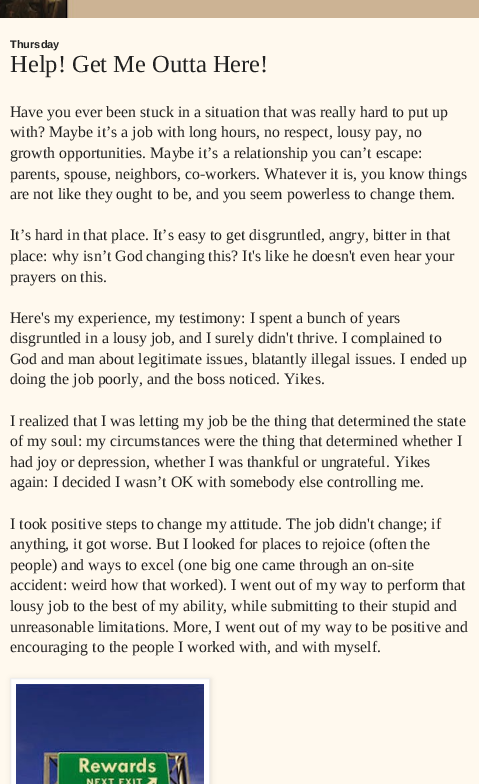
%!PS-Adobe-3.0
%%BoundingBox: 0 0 479 784
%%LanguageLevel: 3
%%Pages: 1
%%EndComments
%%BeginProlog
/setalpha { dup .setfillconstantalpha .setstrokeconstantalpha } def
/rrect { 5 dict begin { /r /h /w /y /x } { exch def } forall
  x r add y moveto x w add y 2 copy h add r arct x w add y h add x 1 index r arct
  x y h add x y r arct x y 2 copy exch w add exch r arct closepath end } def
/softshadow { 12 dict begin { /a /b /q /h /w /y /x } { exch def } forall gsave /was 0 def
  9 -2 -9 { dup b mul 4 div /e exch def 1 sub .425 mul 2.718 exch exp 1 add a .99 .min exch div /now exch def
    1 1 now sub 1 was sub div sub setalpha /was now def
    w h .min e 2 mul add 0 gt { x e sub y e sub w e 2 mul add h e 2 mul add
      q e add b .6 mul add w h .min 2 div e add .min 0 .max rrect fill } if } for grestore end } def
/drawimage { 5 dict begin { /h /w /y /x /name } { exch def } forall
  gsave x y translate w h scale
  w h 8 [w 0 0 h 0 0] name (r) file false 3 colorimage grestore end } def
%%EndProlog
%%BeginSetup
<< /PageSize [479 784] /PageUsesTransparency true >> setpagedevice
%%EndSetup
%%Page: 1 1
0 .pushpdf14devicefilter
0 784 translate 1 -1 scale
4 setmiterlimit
1 0.976 0.933 setrgbcolor
0 0 479 784 rectfill
(images/1.raw) 0 0 479 18 drawimage
0 setgray
11 679 200 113 0 2.5 0.1 softshadow
1 setgray
newpath 10.5 678.5 moveto 209.5 678.5 lineto 209.5 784.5 lineto 10.5 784.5 lineto closepath gsave fill grestore
0.933 setgray
stroke
(images/2.raw) 16 684 188 100 drawimage
/LiberationSans-Bold [11 0 0 -11 0 0] selectfont
0.133 setgray
10 48 moveto (Thursday) show
/LiberationSerif-Regular [24.5 0 0 -24.5 0 0] selectfont
10 72 moveto (Help! Get Me Outta Here!) show
/LiberationSerif-Regular [15.85 0 0 -15.85 0 0] selectfont
10 117 moveto (Have you ever been stuck in a situation that was really hard to put up) show
10 137 moveto (with? Maybe it’s a job with long hours, no respect, lousy pay, no) show
10 158 moveto (growth opportunities. Maybe it’s a relationship you can’t escape:) show
10 179 moveto (parents, spouse, neighbors, co-workers. Whatever it is, you know things) show
10 199 moveto (are not like they ought to be, and you seem powerless to change them.) show
10 240 moveto (It’s hard in that place. It’s easy to get disgruntled, angry, bitter in that) show
10 261 moveto (place: why isn’t God changing this? It's like he doesn't even hear your) show
10 282 moveto (prayers on this.) show
10 323 moveto (Here's my experience, my testimony: I spent a bunch of years) show
10 343 moveto (disgruntled in a lousy job, and I surely didn't thrive. I complained to) show
10 364 moveto (God and man about legitimate issues, blatantly illegal issues. I ended up) show
10 384 moveto (doing the job poorly, and the boss noticed. Yikes.) show
10 426 moveto (I realized that I was letting my job be the thing that determined the state) show
10 446 moveto (of my soul: my circumstances were the thing that determined whether I) show
10 467 moveto (had joy or depression, whether I was thankful or ungrateful. Yikes) show
10 487 moveto (again: I decided I wasn’t OK with somebody else controlling me.) show
10 529 moveto (I took positive steps to change my attitude. The job didn't change; if) show
10 549 moveto (anything, it got worse. But I looked for places to rejoice \(often the) show
10 570 moveto (people\) and ways to excel \(one big one came through an on-site) show
10 590 moveto (accident: weird how that worked\). I went out of my way to perform that) show
10 611 moveto (lousy job to the best of my ability, while submitting to their stupid and) show
10 632 moveto (unreasonable limitations. More, I went out of my way to be positive and) show
10 652 moveto (encouraging to the people I worked with, and with myself.) show
.poppdf14devicefilter showpage
%%EOF
